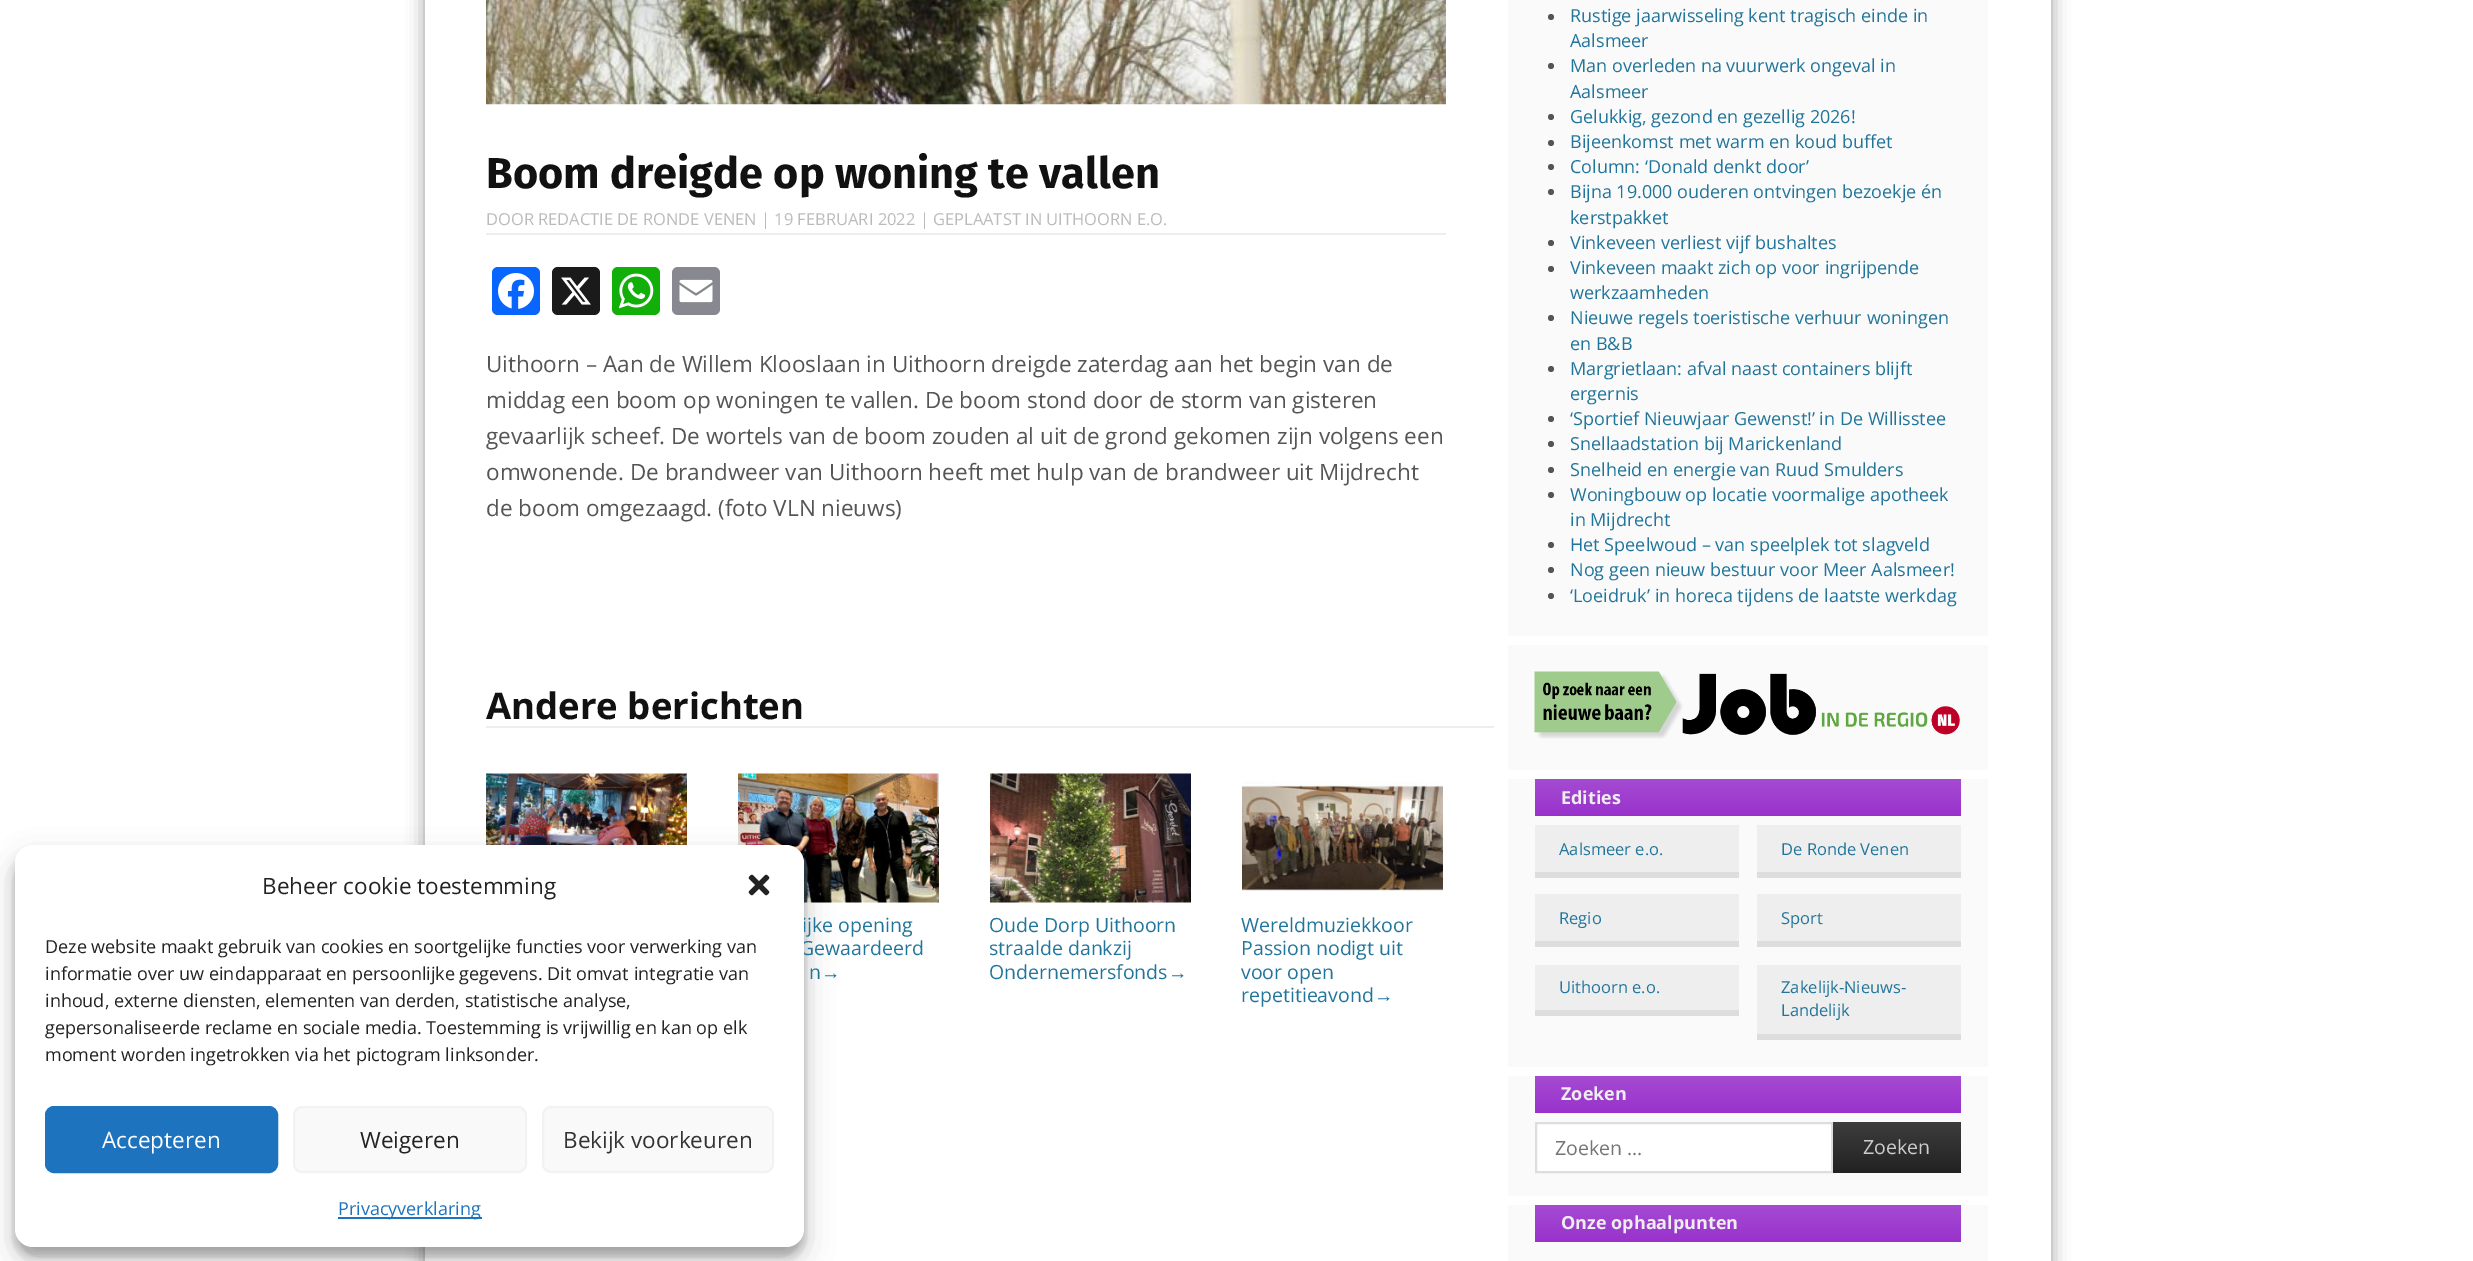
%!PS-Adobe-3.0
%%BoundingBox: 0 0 2473 1261
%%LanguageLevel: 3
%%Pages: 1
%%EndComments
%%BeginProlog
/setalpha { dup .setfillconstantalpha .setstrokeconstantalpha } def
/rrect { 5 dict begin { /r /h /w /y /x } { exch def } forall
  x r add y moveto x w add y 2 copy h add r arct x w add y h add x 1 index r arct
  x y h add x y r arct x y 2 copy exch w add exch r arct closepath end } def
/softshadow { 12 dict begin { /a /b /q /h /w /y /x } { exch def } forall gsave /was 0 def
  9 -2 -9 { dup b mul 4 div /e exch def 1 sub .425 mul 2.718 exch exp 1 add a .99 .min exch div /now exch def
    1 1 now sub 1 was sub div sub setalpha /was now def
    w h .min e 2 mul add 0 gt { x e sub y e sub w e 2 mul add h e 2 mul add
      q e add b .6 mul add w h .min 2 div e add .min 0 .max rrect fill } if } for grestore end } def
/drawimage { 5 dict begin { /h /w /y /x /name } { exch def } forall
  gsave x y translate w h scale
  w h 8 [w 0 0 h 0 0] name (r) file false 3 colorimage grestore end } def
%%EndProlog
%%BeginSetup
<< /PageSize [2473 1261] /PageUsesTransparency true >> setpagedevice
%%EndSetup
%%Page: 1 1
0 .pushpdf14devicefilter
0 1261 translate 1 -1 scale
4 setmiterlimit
1 setgray
0 0 2473 1261 rectfill
0 setgray
425 -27 1626 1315 0 9 0.4 softshadow
1 setgray
425 0 1626 1261 rectfill
(images/7.raw) 486 773 201 72 drawimage
(images/8.raw) 738 773 201 130 drawimage
0 setgray
15 854 789 402 18 4.5 0.23 softshadow
15 860 789 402 18 15 0.19 softshadow
0.933 setgray
486 233 960 2 rectfill
(images/2.raw) 486 0 960 105 drawimage
0.031 0.4 1 setrgbcolor
492 267 48 48 6 rrect fill
(images/3.raw) 498 273 36 36 drawimage
0.102 setgray
552 267 48 48 6 rrect fill
(images/4.raw) 561 277 30 28 drawimage
0.071 0.686 0.039 setrgbcolor
612 267 48 48 6 rrect fill
(images/5.raw) 618 273 36 36 drawimage
0.533 0.537 0.565 setrgbcolor
672 267 48 48 6 rrect fill
(images/6.raw) 679 279 34 24 drawimage
0.933 setgray
486 726 1008 2 rectfill
(images/9.raw) 990 773 201 130 drawimage
(images/10.raw) 1242 781 201 110 drawimage
0.98 setgray
1508 0 480 636 rectfill
0.333 setgray
newpath 1551 17 3 0 360 arc closepath fill
newpath 1551 66 3 0 360 arc closepath fill
newpath 1551 117 3 0 360 arc closepath fill
newpath 1551 143 3 0 360 arc closepath fill
newpath 1551 167 3 0 360 arc closepath fill
newpath 1551 192 3 0 360 arc closepath fill
newpath 1551 243 3 0 360 arc closepath fill
newpath 1551 269 3 0 360 arc closepath fill
newpath 1551 318 3 0 360 arc closepath fill
newpath 1551 369 3 0 360 arc closepath fill
newpath 1551 419 3 0 360 arc closepath fill
newpath 1551 444 3 0 360 arc closepath fill
newpath 1551 470 3 0 360 arc closepath fill
newpath 1551 495 3 0 360 arc closepath fill
newpath 1551 545 3 0 360 arc closepath fill
newpath 1551 570 3 0 360 arc closepath fill
newpath 1551 596 3 0 360 arc closepath fill
0.98 setgray
1508 645 480 125 rectfill
(images/11.raw) 1534 671 426 68 drawimage
1508 779 480 288 rectfill
gsave newpath 1535 779 moveto 1961 779 lineto 1961 816 lineto 1535 816 lineto closepath clip newpath
<< /ShadingType 2 /ColorSpace /DeviceRGB /Coords [1748 779 1748 816] /Extend [true true] /Function << /FunctionType 2 /Domain [0 1] /C0 [0.647 0.294 0.824] /C1 [0.6 0.196 0.8] /N 1 >> >> shfill grestore
0.933 setgray
1535 825 204 47 rectfill
0.867 setgray
1535 872 204 6 rectfill
0.933 setgray
1757 825 204 47 rectfill
0.867 setgray
1757 872 204 6 rectfill
0.933 setgray
1535 894 204 47 rectfill
0.867 setgray
1535 941 204 6 rectfill
0.933 setgray
1757 894 204 47 rectfill
0.867 setgray
1757 941 204 6 rectfill
0.933 setgray
1535 965 204 45 rectfill
0.867 setgray
1535 1010 204 6 rectfill
0.933 setgray
1757 965 204 69 rectfill
0.867 setgray
1757 1034 204 6 rectfill
0.98 setgray
1508 1076 480 120 rectfill
gsave newpath 1535 1076 moveto 1961 1076 lineto 1961 1113 lineto 1535 1113 lineto closepath clip newpath
<< /ShadingType 2 /ColorSpace /DeviceRGB /Coords [1748 1076 1748 1113] /Extend [true true] /Function << /FunctionType 2 /Domain [0 1] /C0 [0.647 0.294 0.824] /C1 [0.6 0.196 0.8] /N 1 >> >> shfill grestore
1 setgray
newpath 1536 1123 moveto 1832 1123 lineto 1832 1172 lineto 1536 1172 lineto closepath gsave fill grestore
0.867 setgray
2 setlinewidth
stroke
gsave newpath 1833 1122 moveto 1961 1122 lineto 1961 1173 lineto 1833 1173 lineto closepath clip newpath
<< /ShadingType 2 /ColorSpace /DeviceRGB /Coords [1897 1122 1897 1173] /Extend [true true] /Function << /FunctionType 2 /Domain [0 1] /C0 [0.239 0.239 0.239] /C1 [0.133 0.133 0.133] /N 1 >> >> shfill grestore
0.98 setgray
1508 1205 480 56 rectfill
gsave newpath 1535 1205 moveto 1961 1205 lineto 1961 1242 lineto 1535 1242 lineto closepath clip newpath
<< /ShadingType 2 /ColorSpace /DeviceRGB /Coords [1748 1205 1748 1242] /Extend [true true] /Function << /FunctionType 2 /Domain [0 1] /C0 [0.647 0.294 0.824] /C1 [0.6 0.196 0.8] /N 1 >> >> shfill grestore
/FiraSans-Bold [43.25 0 0 -43.25 0 0] selectfont
0.067 setgray
486 188 moveto (Boom dreigde op woning te vallen) show
/OpenSans-Regular [16.5 0 0 -16.5 0 0] selectfont
0.733 setgray
486 225 moveto (DOOR REDACTIE DE RONDE VENEN | 19 FEBRUARI 2022 | GEPLAATST IN UITHOORN E.O.) show
/OpenSans-Regular [22.5 0 0 -22.5 0 0] selectfont
0.333 setgray
486 372 moveto (Uithoorn – Aan de Willem Klooslaan in Uithoorn dreigde zaterdag aan het begin van de) show
486 408 moveto (middag een boom op woningen te vallen. De boom stond door de storm van gisteren) show
486 444 moveto (gevaarlijk scheef. De wortels van de boom zouden al uit de grond gekomen zijn volgens een) show
486 480 moveto (omwonende. De brandweer van Uithoorn heeft met hulp van de brandweer uit Mijdrecht) show
486 516 moveto (de boom omgezaagd. \(foto VLN nieuws\)) show
/OpenSans-Bold [36.5 0 0 -36.5 0 0] selectfont
0.067 setgray
486 719 moveto (Andere berichten) show
/OpenSans-Regular [19.5 0 0 -19.5 0 0] selectfont
0.129 0.459 0.608 setrgbcolor
802 932 moveto (ijke opening) show
800 955 moveto (Gewaardeerd) show
1 setgray
15 845 789 402 18 rrect fill
/OpenSans-Regular [18 0 0 -18 0 0] selectfont
0.133 setgray
45 1061 moveto (moment worden ingetrokken via het pictogram linksonder.) show
45 1034 moveto (gepersonaliseerde reclame en sociale media. Toestemming is vrijwillig en kan op elk) show
45 1007 moveto (inhoud, externe diensten, elementen van derden, statistische analyse,) show
45 980 moveto (informatie over uw eindapparaat en persoonlijke gegevens. Dit omvat integratie van) show
45 953 moveto (Deze website maakt gebruik van cookies en soortgelijke functies voor verwerking van) show
(images/1.raw) 748 874 22 22 drawimage
0.118 0.451 0.745 setrgbcolor
338 1217 144 2 rectfill
338 1215 moveto (Privacyverklaring) show
0.976 setgray
543 1107 230 65 8 rrect gsave fill grestore
0.949 setgray
stroke
/OpenSans-Regular [22.5 0 0 -22.5 0 0] selectfont
0.2 setgray
563 1148 moveto (Bekijk voorkeuren) show
0.976 setgray
294 1107 232 65 8 rrect gsave fill grestore
0.949 setgray
stroke
0.133 setgray
360 1148 moveto (Weigeren) show
0.118 0.451 0.745 setrgbcolor
46 1107 231 65 8 rrect gsave fill grestore
stroke
1 setgray
102 1148 moveto (Accepteren) show
0.133 setgray
262 894 moveto (Beheer cookie toestemming) show
/OpenSans-Regular [19.5 0 0 -19.5 0 0] selectfont
0.129 0.459 0.608 setrgbcolor
809 979 moveto (n) show
/LiberationSans-Regular [19.5 0 0 -19.5 0 0] selectfont
821 979 moveto (→) show
/OpenSans-Regular [19.5 0 0 -19.5 0 0] selectfont
989 932 moveto (Oude Dorp Uithoorn) show
989 955 moveto (straalde dankzij) show
989 979 moveto (Ondernemersfonds) show
/LiberationSans-Regular [19.5 0 0 -19.5 0 0] selectfont
1168 979 moveto (→) show
/OpenSans-Regular [19.5 0 0 -19.5 0 0] selectfont
1241 932 moveto (Wereldmuziekkoor) show
1241 955 moveto (Passion nodigt uit) show
1241 979 moveto (voor open) show
1241 1002 moveto (repetitieavond) show
/LiberationSans-Regular [19.5 0 0 -19.5 0 0] selectfont
1374 1002 moveto (→) show
/OpenSans-Regular [18 0 0 -18 0 0] selectfont
1570 22 moveto (Rustige jaarwisseling kent tragisch einde in) show
1570 47 moveto (Aalsmeer) show
1570 72 moveto (Man overleden na vuurwerk ongeval in) show
1570 98 moveto (Aalsmeer) show
1570 123 moveto (Gelukkig, gezond en gezellig 2026!) show
1570 148 moveto (Bijeenkomst met warm en koud buffet) show
1570 173 moveto (Column: ‘Donald denkt door’) show
1570 198 moveto (Bijna 19.000 ouderen ontvingen bezoekje én) show
1570 224 moveto (kerstpakket) show
1570 249 moveto (Vinkeveen verliest vijf bushaltes) show
1570 274 moveto (Vinkeveen maakt zich op voor ingrijpende) show
1570 299 moveto (werkzaamheden) show
1570 324 moveto (Nieuwe regels toeristische verhuur woningen) show
1570 350 moveto (en B&B) show
1570 375 moveto (Margrietlaan: afval naast containers blijft) show
1570 400 moveto (ergernis) show
1570 425 moveto (‘Sportief Nieuwjaar Gewenst!’ in De Willisstee) show
1570 450 moveto (Snellaadstation bij Marickenland) show
1570 476 moveto (Snelheid en energie van Ruud Smulders) show
1570 501 moveto (Woningbouw op locatie voormalige apotheek) show
1570 526 moveto (in Mijdrecht) show
1570 551 moveto (Het Speelwoud – van speelplek tot slagveld) show
1570 576 moveto (Nog geen nieuw bestuur voor Meer Aalsmeer!) show
1570 602 moveto (‘Loeidruk’ in horeca tijdens de laatste werkdag) show
/OpenSans-Bold [18 0 0 -18 0 0] selectfont
0.933 setgray
1561 804 moveto (Edities) show
/OpenSans-Regular [16.5 0 0 -16.5 0 0] selectfont
0.129 0.459 0.608 setrgbcolor
1559 855 moveto (Aalsmeer e.o.) show
1781 855 moveto (De Ronde Venen) show
1559 924 moveto (Regio) show
1781 924 moveto (Sport) show
1559 993 moveto (Uithoorn e.o.) show
1781 993 moveto (Zakelijk-Nieuws-) show
1781 1016 moveto (Landelijk) show
/OpenSans-Bold [18 0 0 -18 0 0] selectfont
0.933 setgray
1561 1100 moveto (Zoeken) show
/OpenSans-Regular [19.5 0 0 -19.5 0 0] selectfont
0.459 setgray
1555 1155 moveto (Zoeken …) show
0.8 setgray
1863 1154 moveto (Zoeken) show
/OpenSans-Bold [18 0 0 -18 0 0] selectfont
0.933 setgray
1561 1229 moveto (Onze ophaalpunten) show
.poppdf14devicefilter showpage
%%EOF
